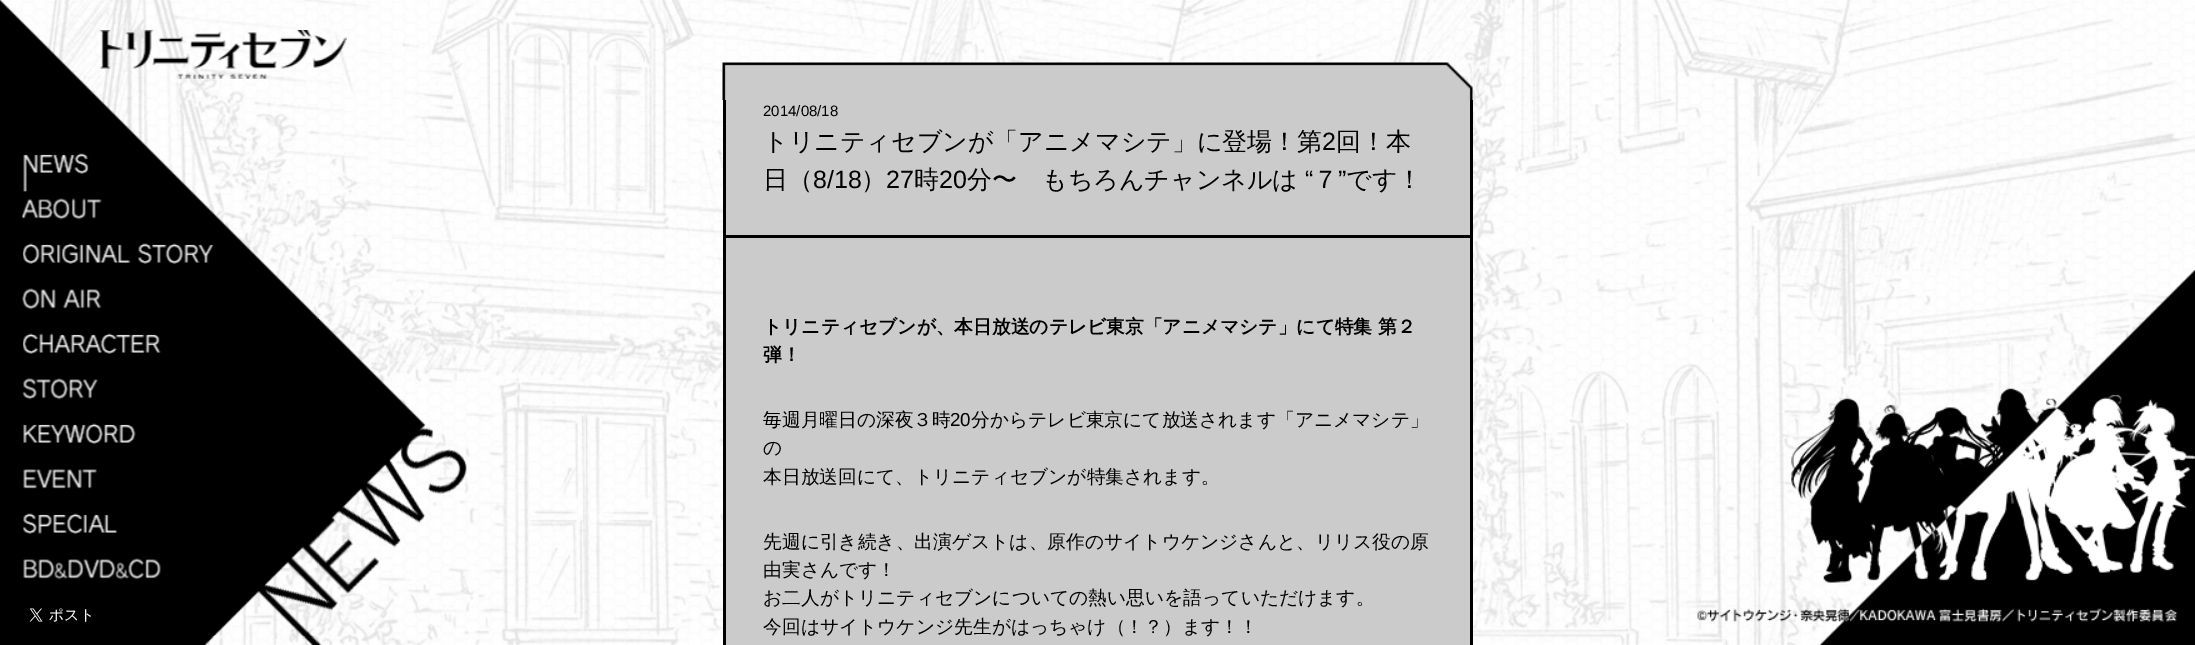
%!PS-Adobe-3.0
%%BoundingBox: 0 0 2195 645
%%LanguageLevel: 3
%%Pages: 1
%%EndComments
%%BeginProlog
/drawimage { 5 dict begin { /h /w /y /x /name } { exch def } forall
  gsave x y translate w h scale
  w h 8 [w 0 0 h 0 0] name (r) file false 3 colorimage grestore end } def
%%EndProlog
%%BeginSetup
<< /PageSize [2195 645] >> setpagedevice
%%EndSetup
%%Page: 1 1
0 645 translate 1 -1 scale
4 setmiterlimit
1 setgray
0 0 2195 645 rectfill
(images/1.raw) 0 0 2195 645 drawimage
(images/2.raw) 0 0 467 645 drawimage
(images/3.raw) 99 30 248 49 drawimage
(images/4.raw) 23 153 66 39 drawimage
(images/5.raw) 22 198 80 22 drawimage
(images/6.raw) 23 243 191 21 drawimage
(images/7.raw) 22 288 80 22 drawimage
(images/8.raw) 23 333 138 21 drawimage
(images/9.raw) 22 378 76 22 drawimage
(images/10.raw) 23 423 113 21 drawimage
(images/11.raw) 23 469 74 20 drawimage
(images/12.raw) 23 513 94 21 drawimage
(images/13.raw) 23 558 138 22 drawimage
(images/14.raw) 101 603 5 3 drawimage
(images/15.raw) 722 62 751 38 drawimage
0.796 setgray
726 100 744 545 rectfill
0 setgray
1470 100 3 545 rectfill
723 100 3 545 rectfill
725 235 745 3 rectfill
(images/16.raw) 23 603 83 21 drawimage
(images/17.raw) 1791 270 404 375 drawimage
(images/18.raw) 1697 608 481 14 drawimage
/LiberationSans-Regular [15 0 0 -15 0 0] selectfont
763 116 moveto (2014/08/18) show
/WenQuanYiZenHei-Medium [25 0 0 -25 0 0] selectfont
763 150 moveto (トリニティセブンが「アニメマシテ」に登場！第) show
/LiberationSans-Regular [25 0 0 -25 0 0] selectfont
1322 150 moveto (2) show
/WenQuanYiZenHei-Medium [25 0 0 -25 0 0] selectfont
1336 150 moveto (回！本) show
763 188 moveto (日（) show
/LiberationSans-Regular [25 0 0 -25 0 0] selectfont
813 188 moveto (8/18) show
/WenQuanYiZenHei-Medium [25 0 0 -25 0 0] selectfont
861 188 moveto (）) show
/LiberationSans-Regular [25 0 0 -25 0 0] selectfont
886 188 moveto (27) show
/WenQuanYiZenHei-Medium [25 0 0 -25 0 0] selectfont
914 188 moveto (時) show
/LiberationSans-Regular [25 0 0 -25 0 0] selectfont
939 188 moveto (20) show
/WenQuanYiZenHei-Medium [25 0 0 -25 0 0] selectfont
967 188 moveto (分〜　もちろんチャンネルは) show
/LiberationSans-Regular [25 0 0 -25 0 0] selectfont
1305 188 moveto (“) show
/WenQuanYiZenHei-Medium [25 0 0 -25 0 0] selectfont
1313 188 moveto (７) show
/LiberationSans-Regular [25 0 0 -25 0 0] selectfont
1338 188 moveto (”) show
/WenQuanYiZenHei-Medium [25 0 0 -25 0 0] selectfont
1346 188 moveto (です！) show
/WenQuanYiZenHei-Bold [18.75 0 0 -18.75 0 0] selectfont
763 333 moveto (トリニティセブンが、本日放送のテレビ東京「アニメマシテ」にて特集 第２) show
763 361 moveto (弾！) show
/WenQuanYiZenHei-Medium [18.75 0 0 -18.75 0 0] selectfont
763 426 moveto (毎週月曜日の深夜３時) show
/LiberationSans-Regular [18.75 0 0 -18.75 0 0] selectfont
950 426 moveto (20) show
/WenQuanYiZenHei-Medium [18.75 0 0 -18.75 0 0] selectfont
971 426 moveto (分からテレビ東京にて放送されます「アニメマシテ」) show
763 454 moveto (の) show
763 483 moveto (本日放送回にて、トリニティセブンが特集されます。) show
763 548 moveto (先週に引き続き、出演ゲストは、原作のサイトウケンジさんと、リリス役の原) show
763 576 moveto (由実さんです！) show
763 604 moveto (お二人がトリニティセブンについての熱い思いを語っていただけます。) show
763 633 moveto (今回はサイトウケンジ先生がはっちゃけ（！？）ます！！) show
showpage
%%EOF
